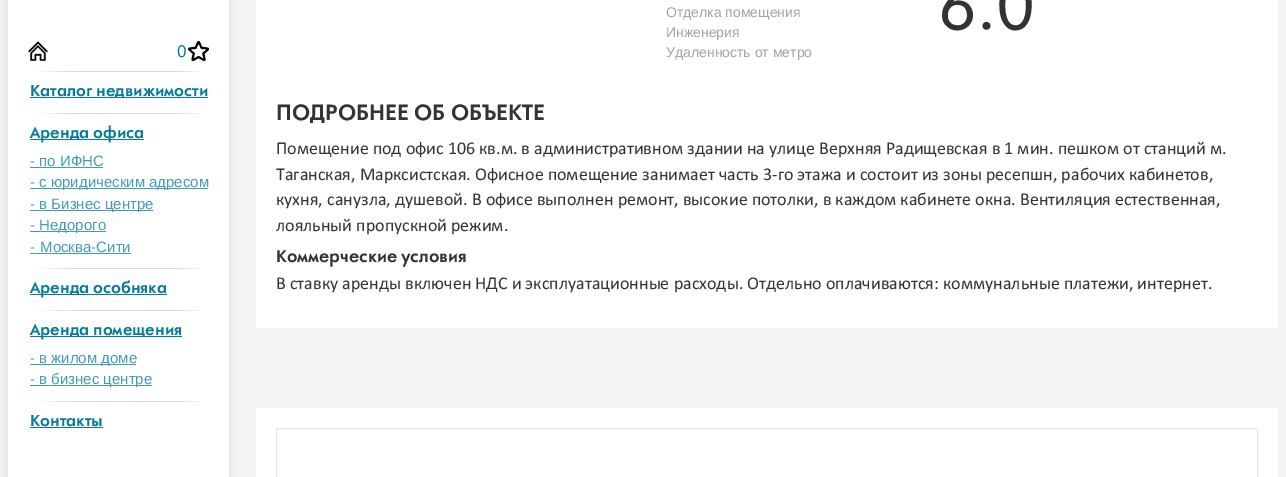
%!PS-Adobe-3.0
%%BoundingBox: 0 0 1286 477
%%LanguageLevel: 3
%%Pages: 1
%%EndComments
%%BeginProlog
/setalpha { dup .setfillconstantalpha .setstrokeconstantalpha } def
/rrect { 5 dict begin { /r /h /w /y /x } { exch def } forall
  x r add y moveto x w add y 2 copy h add r arct x w add y h add x 1 index r arct
  x y h add x y r arct x y 2 copy exch w add exch r arct closepath end } def
/softshadow { 12 dict begin { /a /b /q /h /w /y /x } { exch def } forall gsave /was 0 def
  9 -2 -9 { dup b mul 4 div /e exch def 1 sub .425 mul 2.718 exch exp 1 add a .99 .min exch div /now exch def
    1 1 now sub 1 was sub div sub setalpha /was now def
    w h .min e 2 mul add 0 gt { x e sub y e sub w e 2 mul add h e 2 mul add
      q e add b .6 mul add w h .min 2 div e add .min 0 .max rrect fill } if } for grestore end } def
/drawimage { 5 dict begin { /h /w /y /x /name } { exch def } forall
  gsave x y translate w h scale
  w h 8 [w 0 0 h 0 0] name (r) file false 3 colorimage grestore end } def
%%EndProlog
%%BeginSetup
<< /PageSize [1286 477] /PageUsesTransparency true >> setpagedevice
%%EndSetup
%%Page: 1 1
0 .pushpdf14devicefilter
0 477 translate 1 -1 scale
4 setmiterlimit
0.961 setgray
0 0 1286 477 rectfill
0 setgray
8 0 221 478 0 7 0.1 softshadow
1 setgray
8 0 221 477 rectfill
(images/1.raw) 28 41 20 20 drawimage
(images/2.raw) 188 41 21 20 drawimage
(images/3.raw) 37 71 164 1 drawimage
0.024 0.482 0.612 setrgbcolor
30 97 178 1 rectfill
(images/3.raw) 37 113 164 1 drawimage
30 139 114 1 rectfill
0.263 0.612 0.706 setrgbcolor
30 167 73 1 rectfill
30 188 178 1 rectfill
30 210 123 1 rectfill
30 231 76 1 rectfill
30 253 101 1 rectfill
(images/3.raw) 37 268 164 1 drawimage
0.024 0.482 0.612 setrgbcolor
30 294 137 1 rectfill
(images/3.raw) 37 310 164 1 drawimage
30 336 152 1 rectfill
0.263 0.612 0.706 setrgbcolor
30 364 106 1 rectfill
30 385 122 1 rectfill
(images/3.raw) 37 401 164 1 drawimage
0.024 0.482 0.612 setrgbcolor
30 427 73 1 rectfill
1 setgray
256 0 1022 328 rectfill
256 408 1022 69 rectfill
0.906 setgray
276.5 428.5 981 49 rectstroke
/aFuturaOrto-Regular [16 0 0 -16 0 0] selectfont
0.024 0.482 0.612 setrgbcolor
177 57 moveto (0) show
/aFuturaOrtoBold-BoldItalic [15 0 0 -15 0 0] selectfont
30 96 moveto (Каталог недвижимости) show
30 138 moveto (Аренда офиса) show
/LiberationSans-Regular [15 0 0 -15 0 0] selectfont
0.263 0.612 0.706 setrgbcolor
30 166 moveto (- по ИФНС) show
30 187 moveto (- с юридическим адресом) show
30 209 moveto (- в Бизнес центре) show
30 230 moveto (- Недорого) show
30 252 moveto 1 0 32 (- Москва-Сити) widthshow
/aFuturaOrtoBold-BoldItalic [15 0 0 -15 0 0] selectfont
0.024 0.482 0.612 setrgbcolor
30 293 moveto (Аренда особняка) show
30 335 moveto (Аренда помещения) show
/LiberationSans-Regular [15 0 0 -15 0 0] selectfont
0.263 0.612 0.706 setrgbcolor
30 363 moveto (- в жилом доме) show
30 384 moveto (- в бизнес центре) show
/aFuturaOrtoBold-BoldItalic [15 0 0 -15 0 0] selectfont
0.024 0.482 0.612 setrgbcolor
30 426 moveto (Контакты) show
/LiberationSans-Regular [14 0 0 -14 0 0] selectfont
0.639 setgray
666 17 moveto (Отделка помещения) show
666 37 moveto (Инженерия) show
666 57 moveto (Удаленность от метро) show
/aFuturaOrto-Regular [65 0 0 -65 0 0] selectfont
0.2 setgray
938 29 moveto (6.0) show
/aFuturaOrtoBold-BoldItalic [21 0 0 -21 0 0] selectfont
276 120 moveto (ПОДРОБНЕЕ ОБ ОБЪЕКТЕ) show
/Calibri-Regular [18 0 0 -18 0 0] selectfont
276 154 moveto (Помещение под офис 106 кв.м. в административном здании на улице Верхняя Радищевская в 1 мин. пешком от станций м.) show
276 180 moveto (Таганская, Марксистская. Офисное помещение занимает часть 3-го этажа и состоит из зоны ресепшн, рабочих кабинетов,) show
276 205 moveto (кухня, санузла, душевой. В офисе выполнен ремонт, высокие потолки, в каждом кабинете окна. Вентиляция естественная,) show
276 231 moveto (лояльный пропускной режим.) show
/aFuturaOrtoBold-BoldItalic [16 0 0 -16 0 0] selectfont
276 262 moveto (Коммерческие условия) show
/Calibri-Regular [18 0 0 -18 0 0] selectfont
276 289 moveto (В ставку аренды включен НДС и эксплуатационные расходы. Отдельно оплачиваются: коммунальные платежи, интернет.) show
.poppdf14devicefilter showpage
%%EOF
